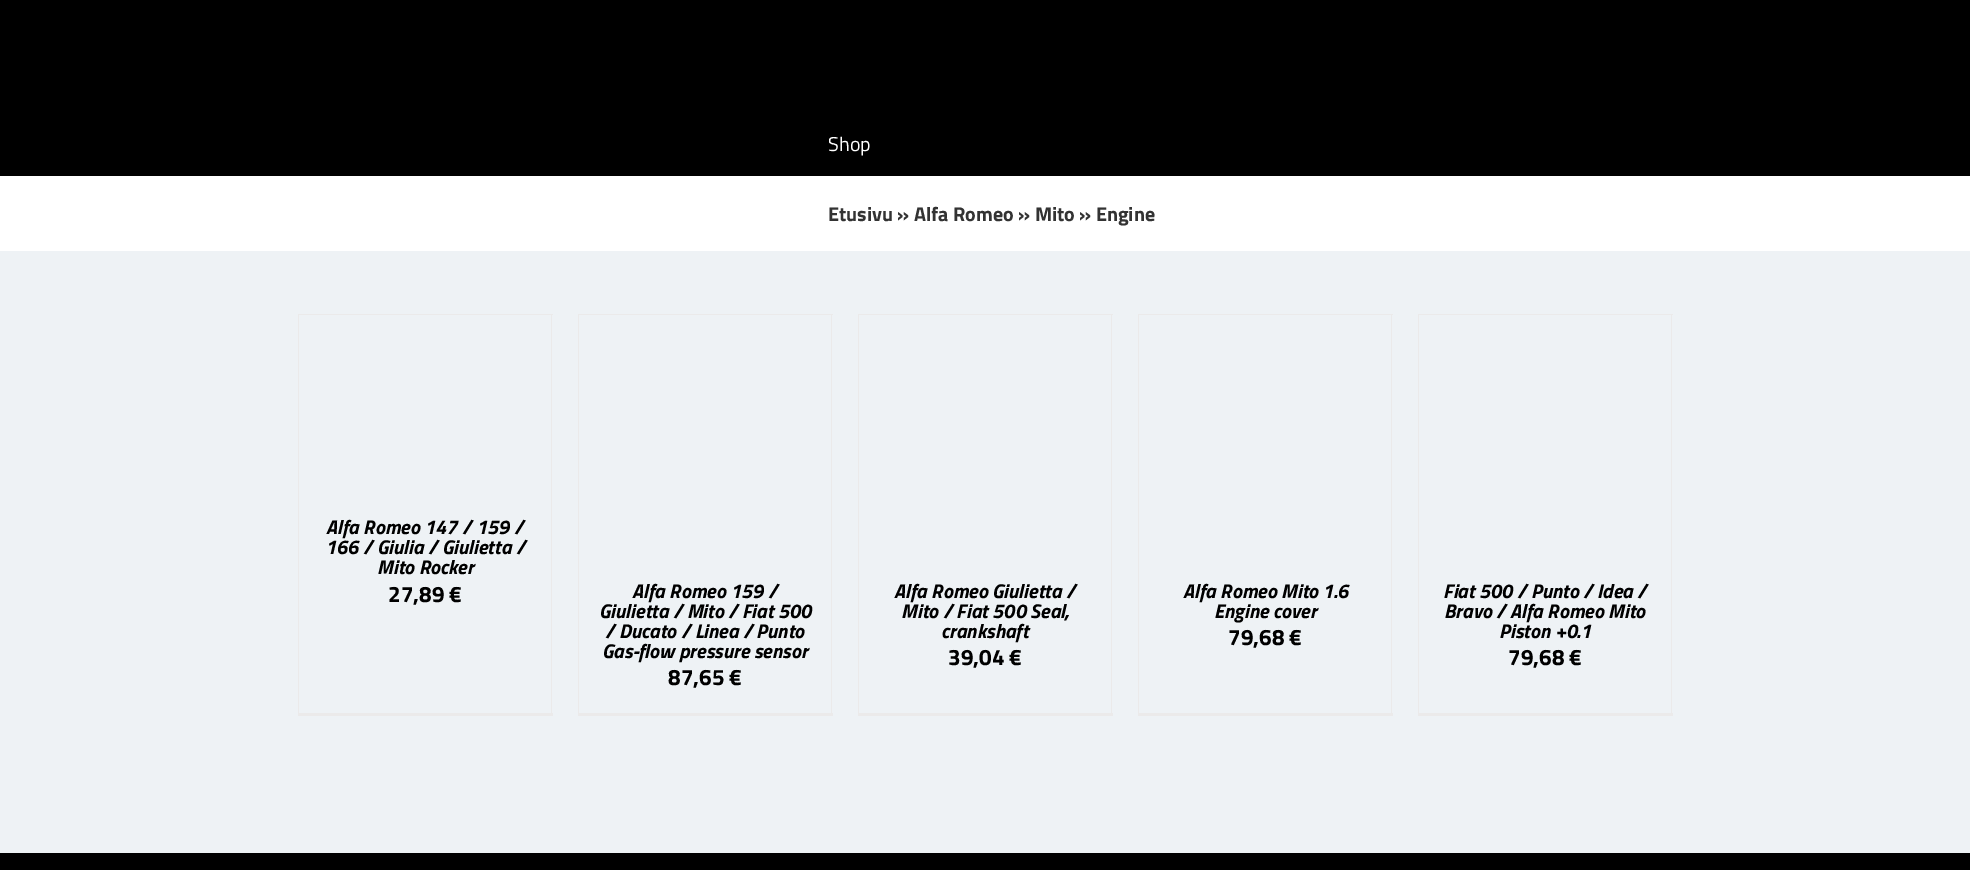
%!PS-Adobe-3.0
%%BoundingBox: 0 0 1970 870
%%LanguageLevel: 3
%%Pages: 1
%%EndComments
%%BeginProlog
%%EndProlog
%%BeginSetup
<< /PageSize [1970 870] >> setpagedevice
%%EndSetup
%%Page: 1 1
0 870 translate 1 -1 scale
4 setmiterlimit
1 setgray
0 0 1970 870 rectfill
0 setgray
0 0 1970 176 rectfill
0.933 0.949 0.961 setrgbcolor
0 251 1970 602 rectfill
0.922 0.918 0.918 setrgbcolor
298 314 255 1 rectfill
551 314 1 401 rectfill
298 713 255 3 rectfill
298 314 1 401 rectfill
578 314 255 1 rectfill
831 314 1 401 rectfill
578 713 255 3 rectfill
578 314 1 401 rectfill
858 314 255 1 rectfill
1111 314 1 401 rectfill
858 713 255 3 rectfill
858 314 1 401 rectfill
1138 314 255 1 rectfill
1391 314 1 401 rectfill
1138 713 255 3 rectfill
1138 314 1 401 rectfill
1418 314 255 1 rectfill
1671 314 1 401 rectfill
1418 713 255 3 rectfill
1418 314 1 401 rectfill
0 setgray
0 853 1970 17 rectfill
/TitilliumWeb-Regular [20 0 0 -20 0 0] selectfont
1 setgray
828 151 moveto (Shop) show
/TitilliumWeb-Bold [20 0 0 -20 0 0] selectfont
0.2 setgray
828 221 moveto (Etusivu » Alfa Romeo » Mito » Engine) show
/TitilliumWeb-BoldItalic [20 0 0 -20 0 0] selectfont
0 setgray
326 534 moveto (Alfa Romeo 147 / 159 /) show
325 554 moveto (166 / Giulia / Giulietta /) show
377 574 moveto (Mito Rocker) show
/TitilliumWeb-Bold [22.5 0 0 -22.5 0 0] selectfont
388 602 moveto (27,89 €) show
/TitilliumWeb-BoldItalic [20 0 0 -20 0 0] selectfont
632 598 moveto (Alfa Romeo 159 /) show
599 618 moveto (Giulietta / Mito / Fiat 500) show
605 638 moveto (/ Ducato / Linea / Punto) show
602 658 moveto (Gas-flow pressure sensor) show
/TitilliumWeb-Bold [22.5 0 0 -22.5 0 0] selectfont
668 685 moveto (87,65 €) show
/TitilliumWeb-BoldItalic [20 0 0 -20 0 0] selectfont
894 598 moveto (Alfa Romeo Giulietta /) show
901 618 moveto (Mito / Fiat 500 Seal,) show
941 638 moveto (crankshaft) show
/TitilliumWeb-Bold [22.5 0 0 -22.5 0 0] selectfont
948 665 moveto (39,04 €) show
/TitilliumWeb-BoldItalic [20 0 0 -20 0 0] selectfont
1183 598 moveto (Alfa Romeo Mito 1.6) show
1214 618 moveto (Engine cover) show
/TitilliumWeb-Bold [22.5 0 0 -22.5 0 0] selectfont
1228 645 moveto (79,68 €) show
/TitilliumWeb-BoldItalic [20 0 0 -20 0 0] selectfont
1443 598 moveto (Fiat 500 / Punto / Idea /) show
1444 618 moveto (Bravo / Alfa Romeo Mito) show
1499 638 moveto (Piston +0.1) show
/TitilliumWeb-Bold [22.5 0 0 -22.5 0 0] selectfont
1508 665 moveto (79,68 €) show
showpage
%%EOF
